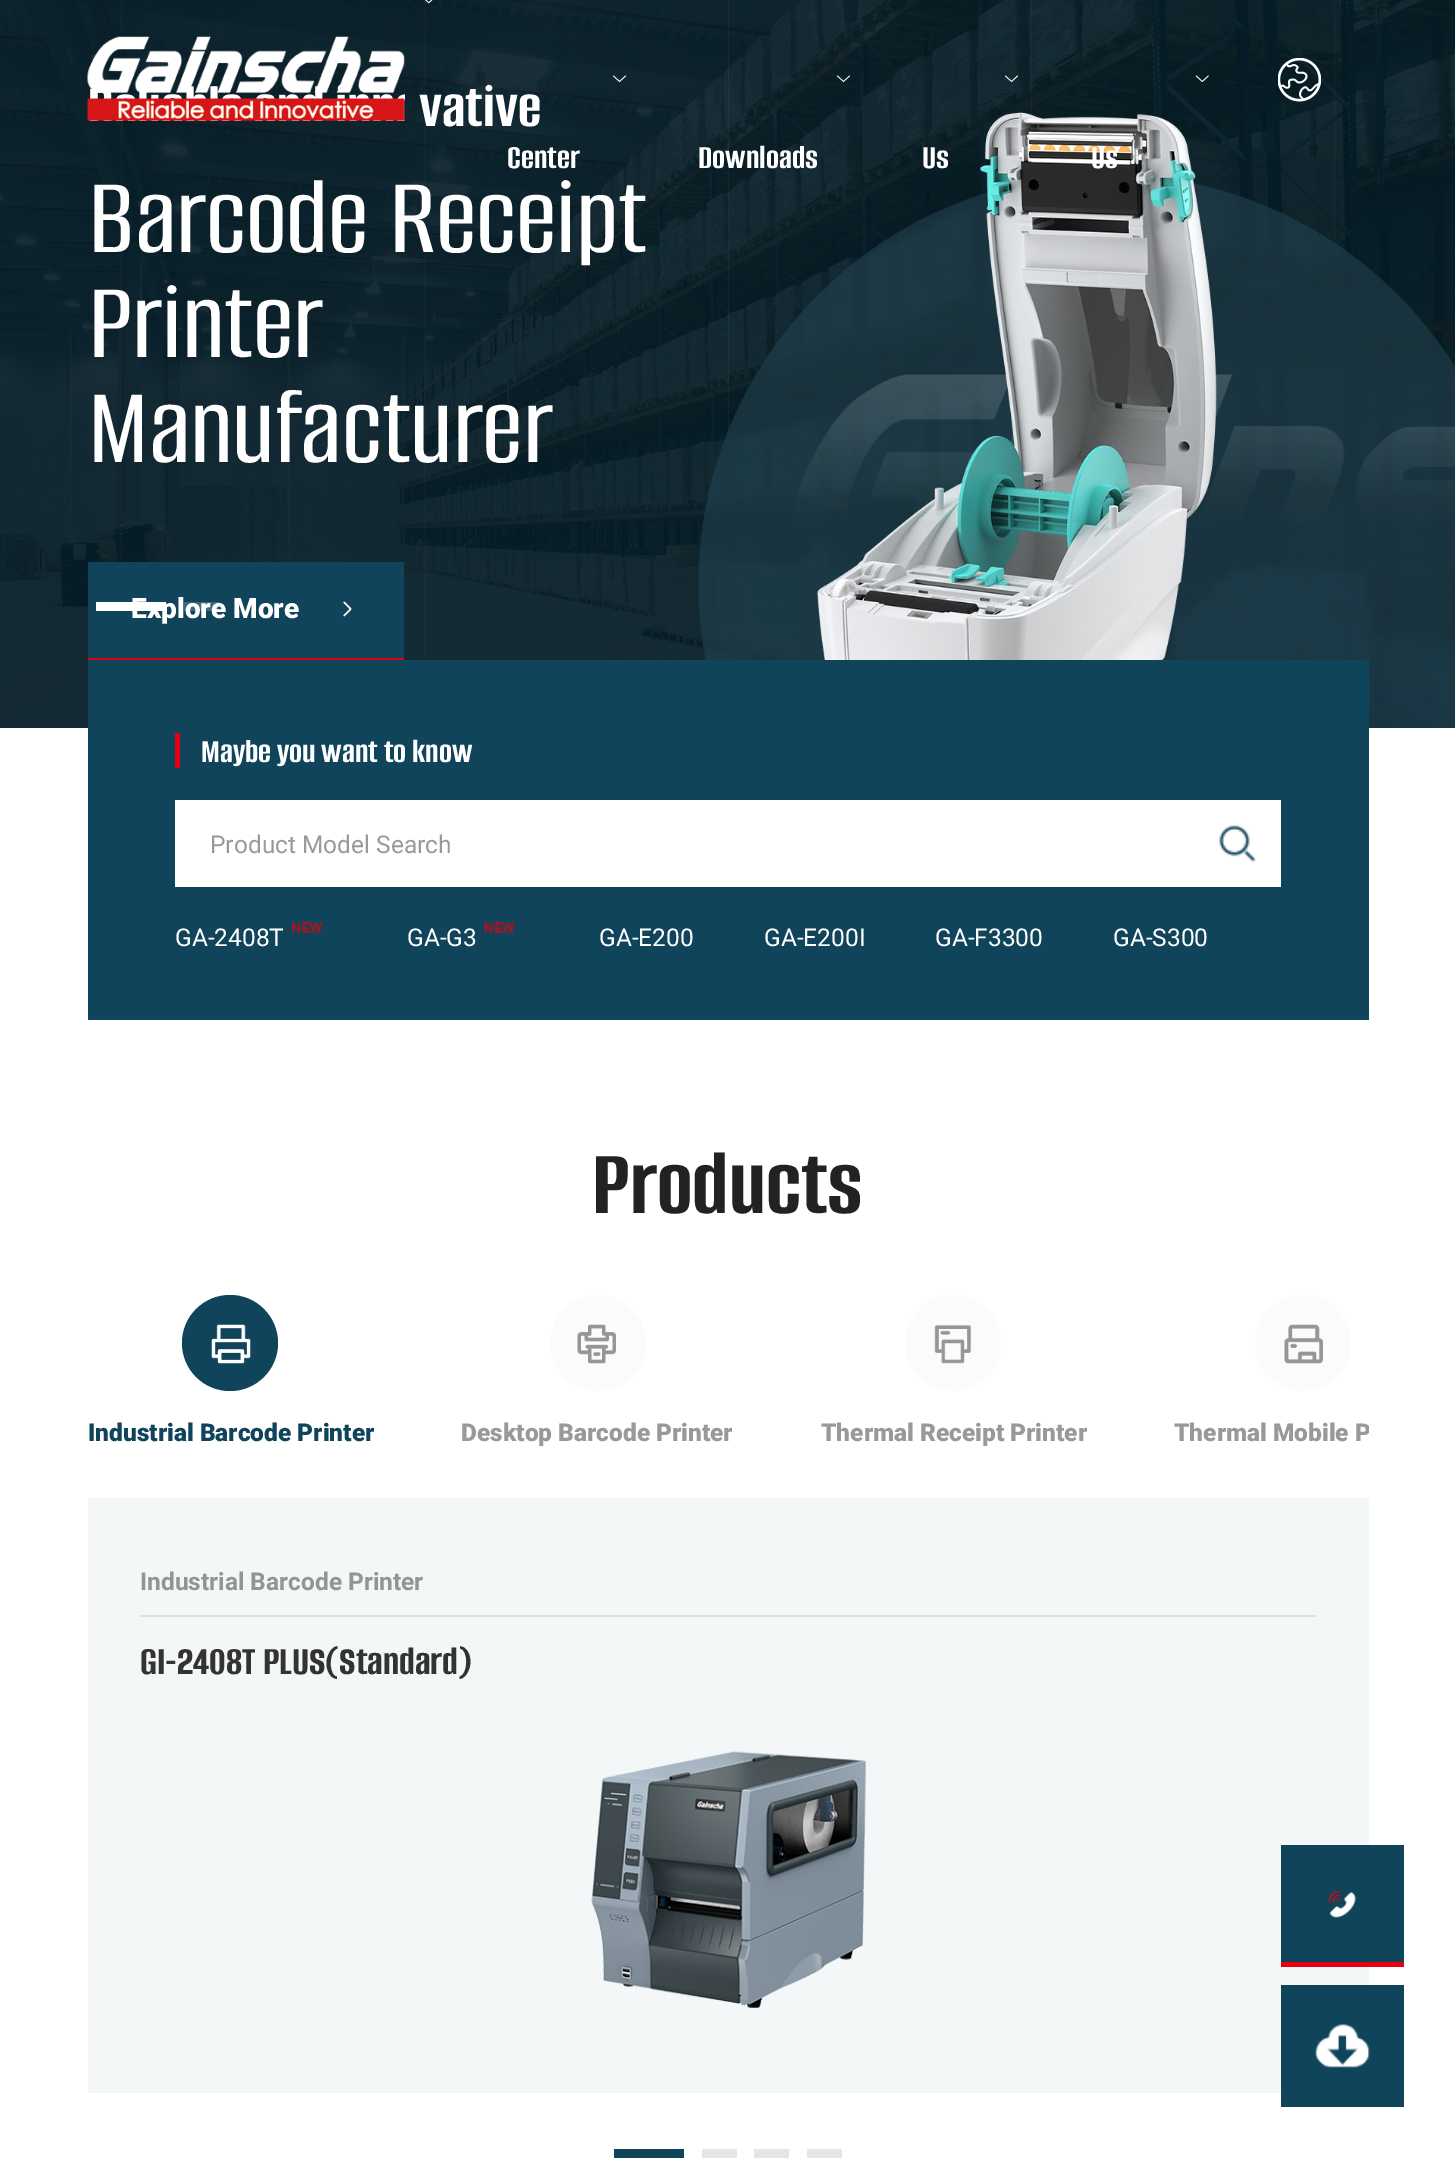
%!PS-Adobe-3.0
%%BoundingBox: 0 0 1455 2159
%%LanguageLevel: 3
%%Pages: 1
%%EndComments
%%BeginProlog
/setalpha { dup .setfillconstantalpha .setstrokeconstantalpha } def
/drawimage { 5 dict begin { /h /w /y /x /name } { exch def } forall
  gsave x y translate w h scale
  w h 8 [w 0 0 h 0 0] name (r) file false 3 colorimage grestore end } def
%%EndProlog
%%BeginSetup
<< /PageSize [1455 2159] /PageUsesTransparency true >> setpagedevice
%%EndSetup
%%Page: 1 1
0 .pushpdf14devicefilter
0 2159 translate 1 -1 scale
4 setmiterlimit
1 setgray
0 0 1455 2159 rectfill
(images/1.raw) 0 0 1455 728 drawimage
0.059 0.267 0.353 setrgbcolor
88 562 316 96 rectfill
(images/2.raw) 343 601 9 16 drawimage
0.902 0 0.071 setrgbcolor
88 658 316 2 rectfill
1 setgray
96 602 70 9 rectfill
0.059 0.267 0.353 setrgbcolor
88 660 1281 360 rectfill
0.902 0 0.071 setrgbcolor
175 733 5 35 rectfill
1 setgray
175 800 1106 87 rectfill
(images/3.raw) 1219 825 37 37 drawimage
(images/4.raw) 292 922 31 12 drawimage
(images/5.raw) 484 922 32 12 drawimage
0.059 0.267 0.353 setrgbcolor
newpath 230 1343 48 0 360 arc closepath fill
(images/6.raw) 211 1324 40 40 drawimage
0.98 0.984 0.988 setrgbcolor
newpath 598 1343 48 0 360 arc closepath fill
(images/7.raw) 577 1324 39 40 drawimage
newpath 953 1343 48 0 360 arc closepath fill
(images/8.raw) 934 1324 38 40 drawimage
newpath 1303 1343 48 0 360 arc closepath fill
(images/9.raw) 1284 1324 39 40 drawimage
0.957 0.969 0.973 setrgbcolor
88 1498 1281 595 rectfill
0.863 0.871 0.875 setrgbcolor
140 1615 1176 2 rectfill
(images/10.raw) 591 1751 275 257 drawimage
0.059 0.267 0.353 setrgbcolor
614 2149 70 9 rectfill
0.898 setgray
702 2149 35 9 rectfill
754 2149 35 9 rectfill
807 2149 35 9 rectfill
(images/11.raw) 87 36 318 85 drawimage
(images/12.raw) 1278 58 43 44 drawimage
(images/13.raw) 425 0 8 4 drawimage
(images/14.raw) 613 75 13 7 drawimage
(images/15.raw) 837 75 13 7 drawimage
(images/16.raw) 1005 75 13 7 drawimage
(images/17.raw) 1195 75 14 7 drawimage
0.059 0.267 0.353 setrgbcolor
1281 1845 123 117 rectfill
(images/18.raw) 1327 1890 29 28 drawimage
0.902 0 0.071 setrgbcolor
1281 1962 123 5 rectfill
0.059 0.267 0.353 setrgbcolor
1281 1985 123 122 rectfill
(images/19.raw) 1315 2024 55 44 drawimage
/AlumniSans-Bold [63 0 0 -63 0 0] selectfont
1 setgray
419 126 moveto (vative) show
/AlumniSans-Medium [113.75 0 0 -113.75 0 0] selectfont
88 252 moveto (Barcode Receipt) show
88 357 moveto (Printer) show
88 462 moveto (Manufacturer) show
/Roboto-Black [28 0 0 -28 0 0] selectfont
131 618 moveto (Explore More) show
0.2 setalpha
184 602 35 9 rectfill
/AlumniSans-Bold [35 0 0 -35 0 0] selectfont
1 setalpha
201 762 moveto (Maybe you want to know) show
/Roboto-Regular [24.5 0 0 -24.5 0 0] selectfont
0.6 setgray
210 853 moveto (Product Model Search) show
1 setgray
175 946 moveto (GA-2408T) show
407 946 moveto (GA-G3) show
599 946 moveto (GA-E200) show
764 946 moveto (GA-E200I) show
935 946 moveto (GA-F3300) show
1113 946 moveto (GA-S300) show
/AlumniSans-Bold [96 0 0 -96 0 0] selectfont
0.133 setgray
592 1213 moveto (Products) show
/Roboto-Black [24.5 0 0 -24.5 0 0] selectfont
0.059 0.267 0.353 setrgbcolor
88 1441 moveto (Industrial Barcode Printer) show
0.6 setgray
461 1441 moveto (Desktop Barcode Printer) show
821 1441 moveto (Thermal Receipt Printer) show
gsave
88 1295 1281 151 rectclip
1174 1441 moveto (Thermal Mobile P) show
grestore
/Roboto-Bold [24.5 0 0 -24.5 0 0] selectfont
0.573 0.58 0.584 setrgbcolor
140 1590 moveto (Industrial Barcode Printer) show
/AlumniSans-Bold [42 0 0 -42 0 0] selectfont
0.2 setgray
140 1674 moveto (GI-2408T PLUS\(Standard\)) show
/AlumniSans-Bold [35 0 0 -35 0 0] selectfont
1 setgray
507 168 moveto (Center) show
698 168 moveto (Downloads) show
922 168 moveto (Us) show
1091 168 moveto (Us) show
.poppdf14devicefilter showpage
%%EOF
